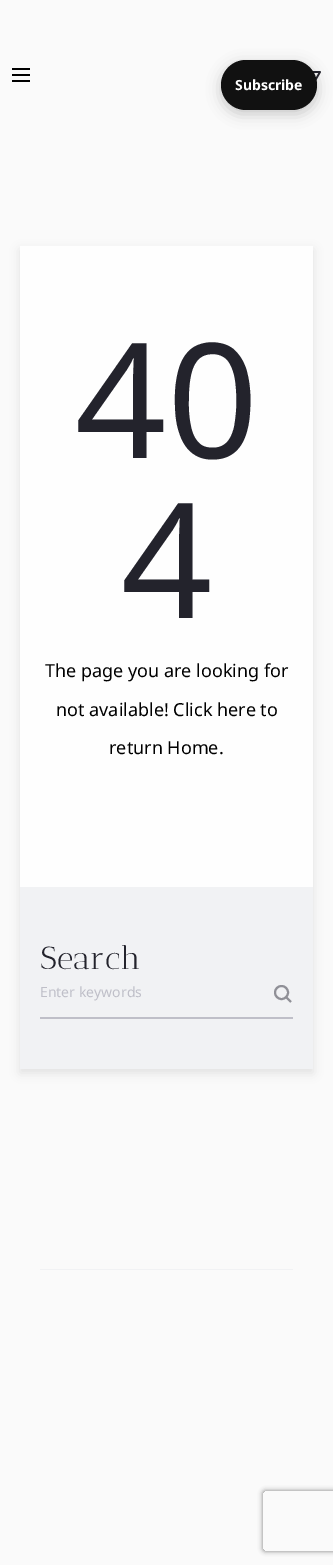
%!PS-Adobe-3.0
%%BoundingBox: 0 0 333 1565
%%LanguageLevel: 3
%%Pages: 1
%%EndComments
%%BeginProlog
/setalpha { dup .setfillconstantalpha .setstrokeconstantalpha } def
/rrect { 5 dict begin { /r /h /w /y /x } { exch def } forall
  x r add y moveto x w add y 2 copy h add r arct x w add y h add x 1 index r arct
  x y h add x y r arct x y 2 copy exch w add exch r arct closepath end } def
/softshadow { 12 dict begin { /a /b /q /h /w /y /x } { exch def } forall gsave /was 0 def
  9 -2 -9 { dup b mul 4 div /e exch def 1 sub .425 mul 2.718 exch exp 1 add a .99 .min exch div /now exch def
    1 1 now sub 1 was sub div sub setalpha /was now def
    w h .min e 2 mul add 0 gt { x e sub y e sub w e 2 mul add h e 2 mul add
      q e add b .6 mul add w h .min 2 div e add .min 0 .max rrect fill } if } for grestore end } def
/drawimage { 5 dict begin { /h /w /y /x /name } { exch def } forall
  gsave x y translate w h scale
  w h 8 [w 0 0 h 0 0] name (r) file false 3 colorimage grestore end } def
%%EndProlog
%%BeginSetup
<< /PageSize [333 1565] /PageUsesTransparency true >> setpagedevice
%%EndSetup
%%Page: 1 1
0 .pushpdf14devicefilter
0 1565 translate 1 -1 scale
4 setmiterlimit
0.98 setgray
0 0 333 1565 rectfill
(images/1.raw) 312 71 9 9 drawimage
0 setgray
221 64 96 50 25 7 0.2 softshadow
0.067 setgray
221 60 96 50 25 rrect fill
0 setgray
12 74 18 2 rectfill
12 68 18 2 rectfill
12 80 18 2 rectfill
0.012 setgray
20 250 293 823 0 5 0.1 softshadow
0.996 setgray
20 246 293 641 rectfill
0.945 0.949 0.957 setrgbcolor
20 887 293 182 rectfill
0.749 0.749 0.784 setrgbcolor
40 1017 253 2 rectfill
0.565 0.565 0.592 setrgbcolor
2 setlinewidth
newpath 281.5 992.5 6.5 0 360 arc closepath stroke
newpath 286 997 moveto 291 1002 lineto stroke
0.945 0.949 0.957 setrgbcolor
40 1269 253 1 rectfill
gsave
newpath 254 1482 moveto 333 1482 lineto 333 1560 lineto 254 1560 lineto closepath 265 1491 moveto 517 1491 lineto 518 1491 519 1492 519 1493 curveto 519 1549 lineto 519 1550 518 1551 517 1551 curveto 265 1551 lineto 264 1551 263 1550 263 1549 curveto 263 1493 lineto 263 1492 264 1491 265 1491 curveto closepath eoclip newpath
0.502 setgray
263 1491 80 60 2 2.5 1 softshadow
grestore
/NotoSans-Bold [14 0 0 -14 0 0] selectfont
1 setgray
235 90 moveto (Subscribe) show
/NotoSans-Regular [160 0 0 -160 0 0] selectfont
0.137 0.137 0.173 setrgbcolor
75 458 moveto (40) show
121 618 moveto (4) show
/NotoSans-Regular [18 0 0 -18 0 0] selectfont
0 setgray
45 677 moveto (The page you are looking for) show
56 716 moveto (not available! Click here to) show
109 754 moveto (return Home.) show
/AnticDidone-Regular [32 0 0 -32 0 0] selectfont
0.137 0.137 0.173 setrgbcolor
40 969 moveto (Search) show
/NotoSans-Regular [14 0 0 -14 0 0] selectfont
0.749 0.749 0.784 setrgbcolor
40 997 moveto (Enter keywords) show
.poppdf14devicefilter showpage
%%EOF
